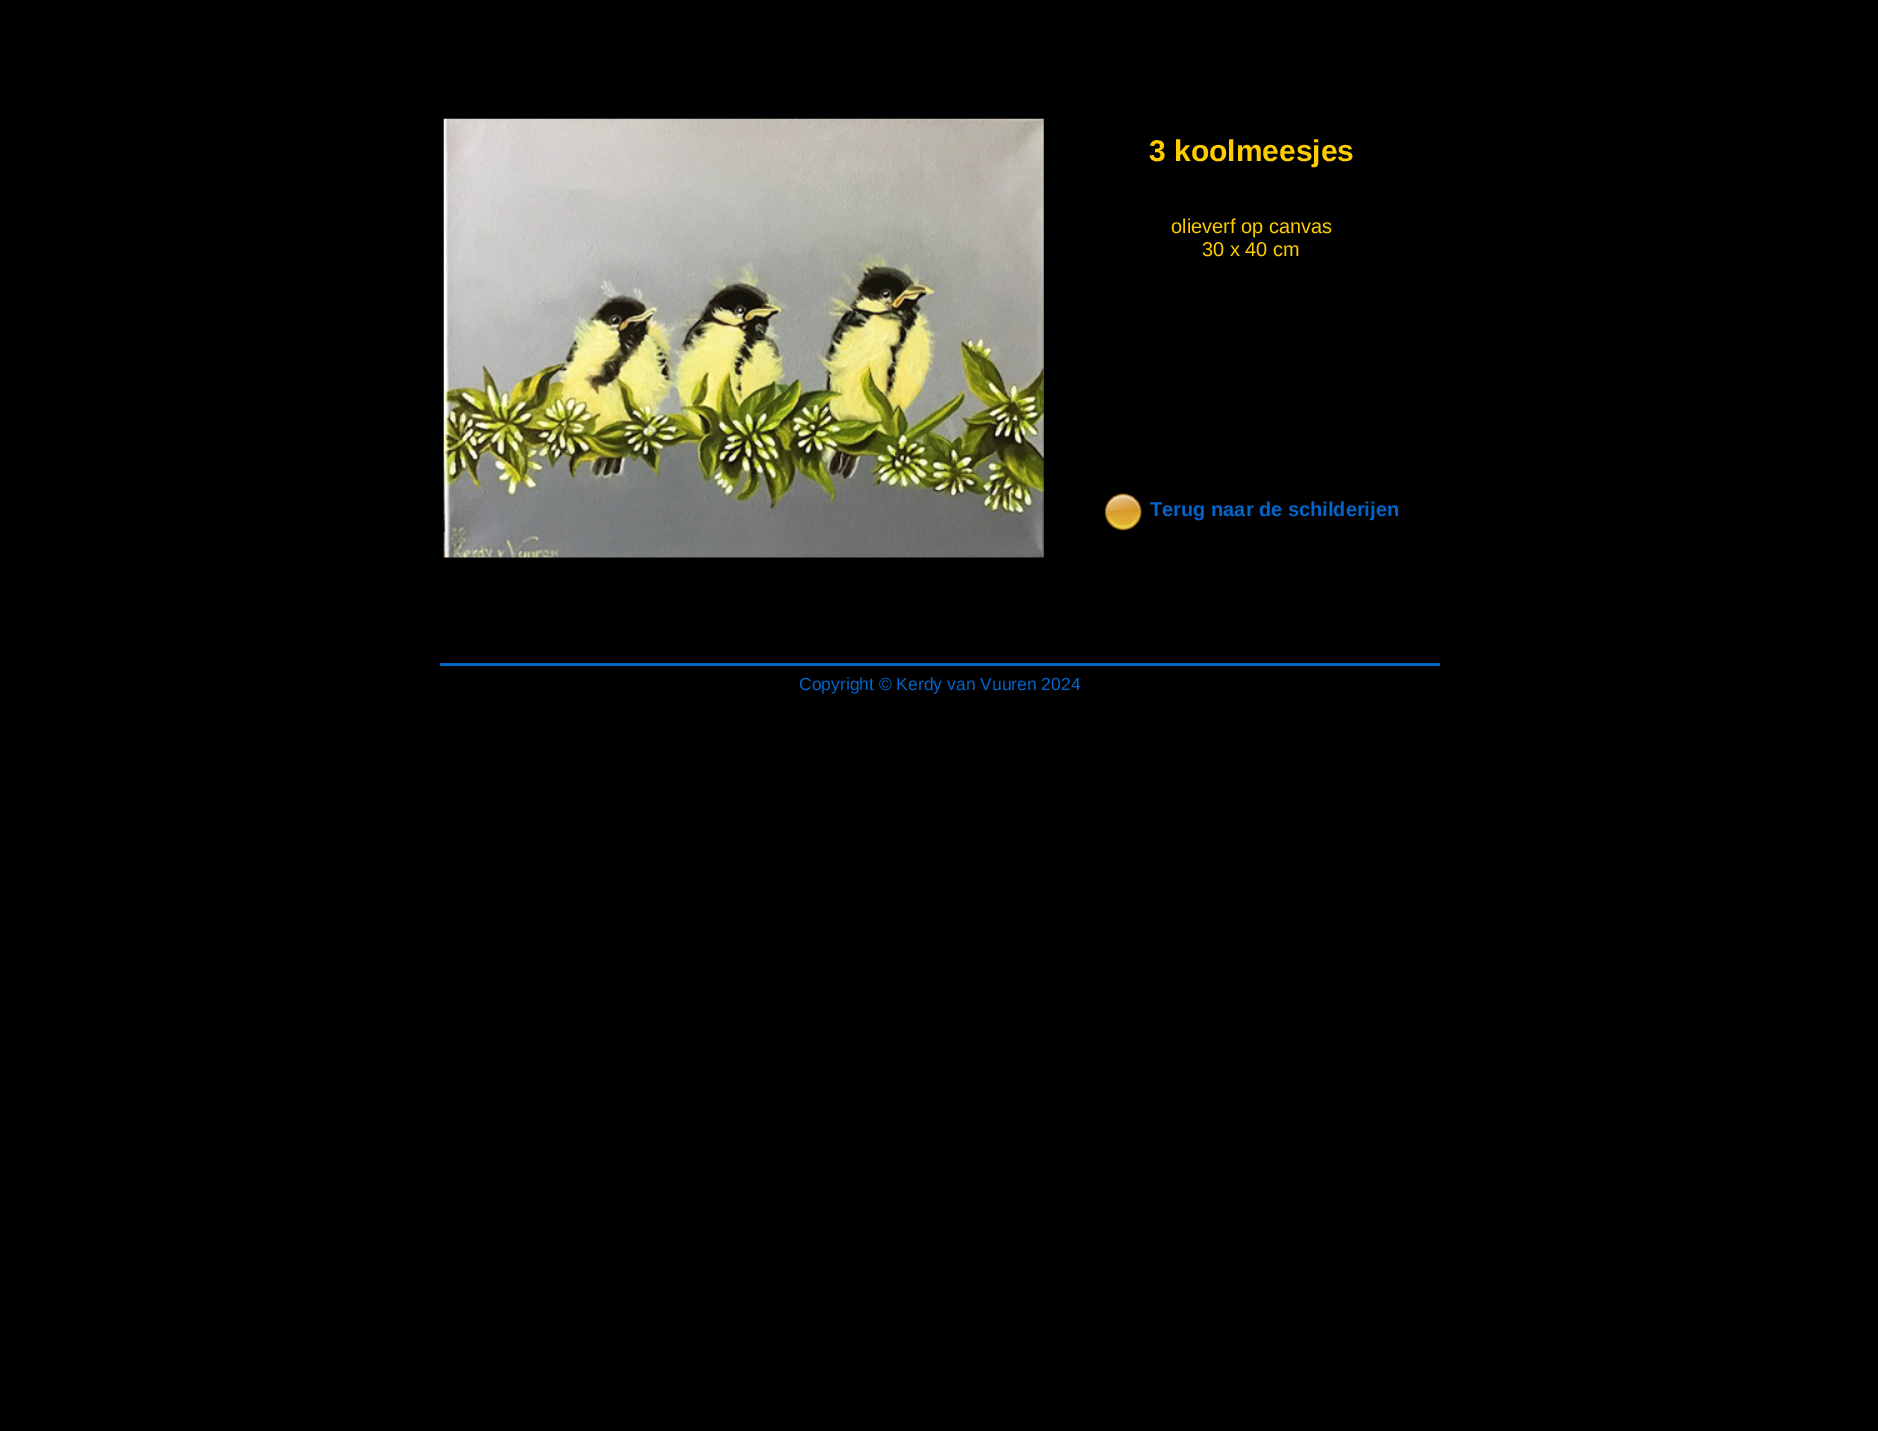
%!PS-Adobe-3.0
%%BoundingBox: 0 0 1878 1431
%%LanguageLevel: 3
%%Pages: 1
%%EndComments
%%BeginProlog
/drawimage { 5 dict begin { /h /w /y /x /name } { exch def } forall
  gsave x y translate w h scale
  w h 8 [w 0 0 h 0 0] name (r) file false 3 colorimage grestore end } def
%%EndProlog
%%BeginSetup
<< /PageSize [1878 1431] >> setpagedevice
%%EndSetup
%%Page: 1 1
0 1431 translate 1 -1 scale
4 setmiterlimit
0 setgray
0 0 1878 1431 rectfill
(images/1.raw) 443 118 601 440 drawimage
(images/2.raw) 1104 493 38 38 drawimage
0 0.4 0.8 setrgbcolor
440 663 1000 3 rectfill
/LiberationSans-Bold [30 0 0 -30 0 0] selectfont
1 0.8 0 setrgbcolor
1149 161 moveto (3 koolmeesjes) show
/LiberationSans-Regular [20 0 0 -20 0 0] selectfont
1171 233 moveto (olieverf op canvas) show
1202 256 moveto (30 x 40 cm) show
/LiberationSans-Bold [20 0 0 -20 0 0] selectfont
0 0.4 0.8 setrgbcolor
1150 516 moveto (Terug naar de schilderijen) show
/LiberationSans-Regular [17.5 0 0 -17.5 0 0] selectfont
799 690 moveto (Copyright © Kerdy van Vuuren 2024) show
showpage
%%EOF
